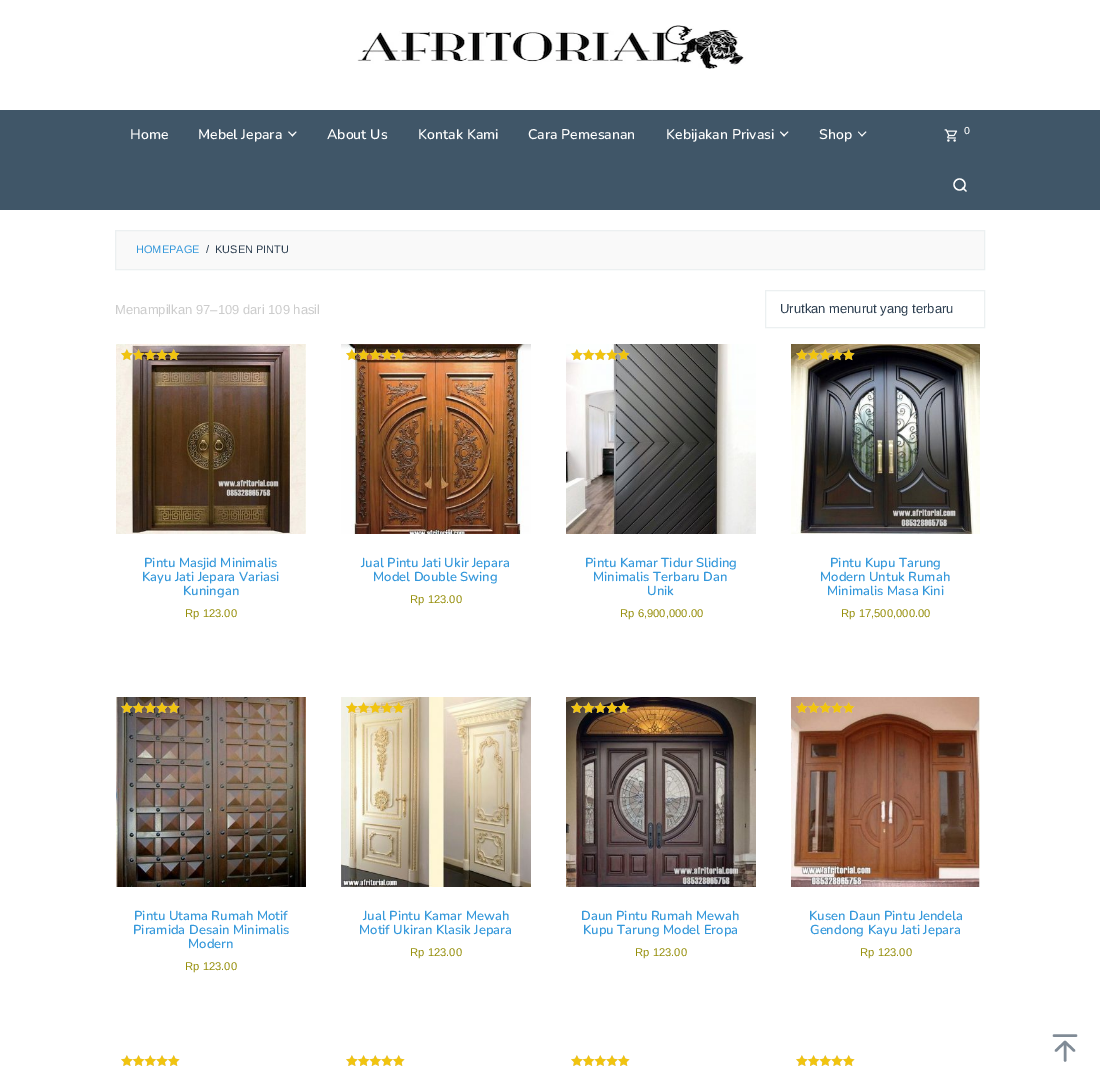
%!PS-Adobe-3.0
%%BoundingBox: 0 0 1100 1087
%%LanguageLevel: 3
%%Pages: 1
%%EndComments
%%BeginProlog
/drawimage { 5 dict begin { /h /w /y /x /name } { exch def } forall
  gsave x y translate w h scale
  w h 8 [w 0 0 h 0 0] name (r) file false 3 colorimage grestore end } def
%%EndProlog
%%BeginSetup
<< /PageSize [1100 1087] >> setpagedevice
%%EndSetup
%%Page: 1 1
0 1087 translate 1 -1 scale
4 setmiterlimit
1 setgray
0 0 1100 1087 rectfill
(images/1.raw) 357 25 389 44 drawimage
0.251 0.337 0.408 setrgbcolor
0 110 1100 100 rectfill
1 setgray
newpath 296 131.5 moveto 296.5 132 lineto 292.5 136.5 lineto 291.5 135.5 lineto closepath fill
newpath 289 131.5 moveto 293 135.5 lineto 292.5 136.5 lineto 288 132 lineto closepath fill
newpath 787.5 131.5 moveto 788.5 132 lineto 784 136.5 lineto 783.5 135.5 lineto closepath fill
newpath 780.5 131.5 moveto 785 135.5 lineto 784 136.5 lineto 780 132 lineto closepath fill
newpath 865.5 131.5 moveto 866.5 132 lineto 862 136.5 lineto 861.5 135.5 lineto closepath fill
newpath 858.5 131.5 moveto 862.5 135.5 lineto 862 136.5 lineto 858 132 lineto closepath fill
(images/2.raw) 944 129 14 13 drawimage
1.3 setlinewidth
newpath 959.5 184.5 5.5 0 360 arc closepath stroke
1 setlinecap
1 setlinejoin
newpath 966 191 moveto 963 188 lineto stroke
0.976 setgray
newpath 115.5 230.5 moveto 984.5 230.5 lineto 984.5 269.5 lineto 115.5 269.5 lineto closepath gsave fill grestore
0.925 0.941 0.945 setrgbcolor
1 setlinewidth
0 setlinecap
0 setlinejoin
stroke
765.5 290.5 219 37 rectstroke
(images/3.raw) 116 344 190 190 drawimage
(images/4.raw) 121 349 59 12 drawimage
(images/5.raw) 121 349 59 12 drawimage
(images/6.raw) 341 344 190 190 drawimage
(images/7.raw) 346 349 59 12 drawimage
(images/8.raw) 346 349 59 12 drawimage
(images/9.raw) 566 344 190 190 drawimage
(images/10.raw) 571 349 59 11 drawimage
(images/11.raw) 571 349 59 12 drawimage
(images/12.raw) 791 344 189 190 drawimage
(images/13.raw) 796 349 59 12 drawimage
(images/14.raw) 796 349 59 12 drawimage
(images/15.raw) 116 697 190 190 drawimage
(images/16.raw) 121 702 59 11 drawimage
(images/17.raw) 121 702 59 11 drawimage
(images/18.raw) 341 697 190 190 drawimage
(images/19.raw) 346 702 59 11 drawimage
(images/20.raw) 346 702 59 11 drawimage
(images/21.raw) 566 697 190 190 drawimage
(images/22.raw) 571 702 59 11 drawimage
(images/23.raw) 571 702 59 11 drawimage
(images/24.raw) 791 697 189 190 drawimage
(images/25.raw) 796 702 59 11 drawimage
(images/26.raw) 796 702 59 11 drawimage
(images/27.raw) 121 1055 59 11 drawimage
(images/28.raw) 121 1055 59 11 drawimage
(images/27.raw) 346 1055 59 11 drawimage
(images/28.raw) 346 1055 59 11 drawimage
(images/27.raw) 571 1055 59 11 drawimage
(images/28.raw) 571 1055 59 11 drawimage
(images/27.raw) 796 1055 59 11 drawimage
(images/28.raw) 796 1055 59 11 drawimage
0.502 0.545 0.588 setrgbcolor
2.5 setlinewidth
1 setlinecap
1 setlinejoin
newpath 1065 1060.5 moveto 1065 1042 lineto 1056 1050.5 moveto 1065 1042 lineto 1074 1050.5 lineto 1054 1035.5 moveto 1076 1035.5 lineto stroke
/Nunito-SemiBold [14 0 0 -14 0 0] selectfont
1 setgray
130 139 moveto (Home) show
198 139 moveto (Mebel Jepara) show
327 139 moveto (About Us) show
418 139 moveto (Kontak Kami) show
528 139 moveto (Cara Pemesanan) show
666 139 moveto (Kebijakan Privasi) show
819 139 moveto (Shop) show
/Nunito-SemiBold [10 0 0 -10 0 0] selectfont
964 134 moveto (0) show
/LiberationSans-Regular [11 0 0 -11 0 0] selectfont
0.204 0.596 0.859 setrgbcolor
136 253 moveto (HOMEPAGE) show
0.173 0.243 0.314 setrgbcolor
206 253 moveto (/) show
215 253 moveto (KUSEN PINTU) show
/LiberationSans-Regular [13 0 0 -13 0 0] selectfont
0.8 setgray
115 314 moveto (Menampilkan 97–109 dari 109 hasil) show
0.173 0.243 0.314 setrgbcolor
780 313 moveto (Urutkan menurut yang terbaru) show
/Nunito-SemiBold [13 0 0 -13 0 0] selectfont
0.204 0.596 0.859 setrgbcolor
144 567 moveto (Pintu Masjid Minimalis) show
142 581 moveto (Kayu Jati Jepara Variasi) show
183 595 moveto (Kuningan) show
/LiberationSans-Regular [11.25 0 0 -11.25 0 0] selectfont
0.584 0.557 0.035 setrgbcolor
185 617 moveto (Rp 123.00) show
/Nunito-SemiBold [13 0 0 -13 0 0] selectfont
0.204 0.596 0.859 setrgbcolor
361 567 moveto (Jual Pintu Jati Ukir Jepara) show
373 581 moveto (Model Double Swing) show
/LiberationSans-Regular [11.25 0 0 -11.25 0 0] selectfont
0.584 0.557 0.035 setrgbcolor
410 603 moveto (Rp 123.00) show
/Nunito-SemiBold [13 0 0 -13 0 0] selectfont
0.204 0.596 0.859 setrgbcolor
585 567 moveto (Pintu Kamar Tidur Sliding) show
593 581 moveto (Minimalis Terbaru Dan) show
647 595 moveto (Unik) show
/LiberationSans-Regular [11.25 0 0 -11.25 0 0] selectfont
0.584 0.557 0.035 setrgbcolor
620 617 moveto (Rp 6,900,000.00) show
/Nunito-SemiBold [13 0 0 -13 0 0] selectfont
0.204 0.596 0.859 setrgbcolor
830 567 moveto (Pintu Kupu Tarung) show
820 581 moveto (Modern Untuk Rumah) show
827 595 moveto (Minimalis Masa Kini) show
/LiberationSans-Regular [11.25 0 0 -11.25 0 0] selectfont
0.584 0.557 0.035 setrgbcolor
841 617 moveto (Rp 17,500,000.00) show
/Nunito-SemiBold [13 0 0 -13 0 0] selectfont
0.204 0.596 0.859 setrgbcolor
134 920 moveto (Pintu Utama Rumah Motif) show
133 934 moveto (Piramida Desain Minimalis) show
188 948 moveto (Modern) show
/LiberationSans-Regular [11.25 0 0 -11.25 0 0] selectfont
0.584 0.557 0.035 setrgbcolor
185 970 moveto (Rp 123.00) show
/Nunito-SemiBold [13 0 0 -13 0 0] selectfont
0.204 0.596 0.859 setrgbcolor
363 920 moveto (Jual Pintu Kamar Mewah) show
359 934 moveto (Motif Ukiran Klasik Jepara) show
/LiberationSans-Regular [11.25 0 0 -11.25 0 0] selectfont
0.584 0.557 0.035 setrgbcolor
410 956 moveto (Rp 123.00) show
/Nunito-SemiBold [13 0 0 -13 0 0] selectfont
0.204 0.596 0.859 setrgbcolor
581 920 moveto (Daun Pintu Rumah Mewah) show
583 934 moveto (Kupu Tarung Model Eropa) show
/LiberationSans-Regular [11.25 0 0 -11.25 0 0] selectfont
0.584 0.557 0.035 setrgbcolor
635 956 moveto (Rp 123.00) show
/Nunito-SemiBold [13 0 0 -13 0 0] selectfont
0.204 0.596 0.859 setrgbcolor
809 920 moveto (Kusen Daun Pintu Jendela) show
810 934 moveto (Gendong Kayu Jati Jepara) show
/LiberationSans-Regular [11.25 0 0 -11.25 0 0] selectfont
0.584 0.557 0.035 setrgbcolor
860 956 moveto (Rp 123.00) show
showpage
%%EOF
